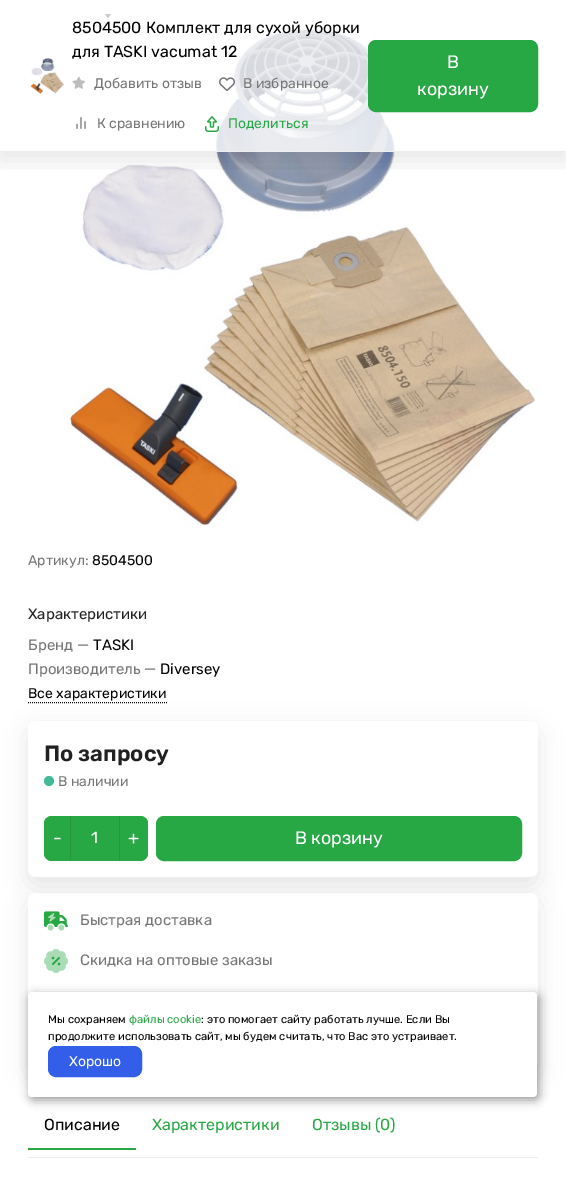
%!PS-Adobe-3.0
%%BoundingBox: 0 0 566 1187
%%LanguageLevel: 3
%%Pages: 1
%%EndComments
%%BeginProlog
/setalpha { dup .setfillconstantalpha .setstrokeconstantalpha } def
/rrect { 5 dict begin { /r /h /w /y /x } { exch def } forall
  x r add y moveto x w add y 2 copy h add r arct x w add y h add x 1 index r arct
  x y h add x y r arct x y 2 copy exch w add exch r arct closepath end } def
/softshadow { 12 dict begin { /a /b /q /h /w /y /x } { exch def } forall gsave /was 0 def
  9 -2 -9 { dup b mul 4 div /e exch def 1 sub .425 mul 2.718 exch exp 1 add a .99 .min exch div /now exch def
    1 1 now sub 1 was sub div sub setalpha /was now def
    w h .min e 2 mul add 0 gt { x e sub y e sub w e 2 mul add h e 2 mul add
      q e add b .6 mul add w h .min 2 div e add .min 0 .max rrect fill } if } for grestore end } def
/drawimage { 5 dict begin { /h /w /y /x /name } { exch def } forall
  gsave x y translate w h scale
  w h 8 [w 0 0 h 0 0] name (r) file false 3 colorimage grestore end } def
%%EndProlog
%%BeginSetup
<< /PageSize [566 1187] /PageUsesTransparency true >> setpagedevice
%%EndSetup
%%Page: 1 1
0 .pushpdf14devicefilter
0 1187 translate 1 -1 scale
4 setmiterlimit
1 setgray
0 0 566 1187 rectfill
0 setgray
newpath 105 14 moveto 111 14 lineto 108 18 lineto closepath fill
(images/6.raw) 63 24 472 502 drawimage
gsave
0 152 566 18 rectclip
0 8 566 152 0 12 0.1 softshadow
grestore
0.8 setalpha
1 setgray
105 14 296 137 rectfill
1 setalpha
0.933 setgray
0 151 566 1 rectfill
(images/1.raw) 30 58 34 36 drawimage
(images/2.raw) 72 76 13 13 drawimage
(images/3.raw) 219 77 16 14 drawimage
(images/4.raw) 76 117 10 12 drawimage
(images/5.raw) 205 116 14 16 drawimage
0.157 0.655 0.271 setrgbcolor
368.5 40.5 169 71 7.5 rrect gsave fill grestore
stroke
0 setgray
[1 1] 0 setdash
newpath 28 702.5 moveto 167 702.5 lineto stroke
28 729 510 156 8 12 0.1 softshadow
1 setgray
28 721 510 156 8 rrect fill
0.259 0.729 0.588 setrgbcolor
newpath 49 781 5 0 360 arc closepath fill
0.157 0.655 0.271 setrgbcolor
newpath 52 816 moveto 71 816 lineto 71 861 lineto 52 861 lineto 47.5 861 44 857.5 44 853 curveto 44 824 lineto 44 819.5 47.5 816 52 816 curveto closepath fill
newpath 52 816 moveto 50 816 48 817 46.5 818.5 curveto 47 819 lineto 48 818 50 817 52 817 curveto 70 817 lineto 71 816 lineto closepath fill
0.141 0.588 0.243 setrgbcolor
newpath 71 816 moveto 70 817 lineto 70 860 lineto 71 861 lineto closepath fill
0.157 0.655 0.271 setrgbcolor
newpath 71 861 moveto 70 860 lineto 52 860 lineto 50 860 48 859 47 858 curveto 46.5 858.5 lineto 48 860 50 861 52 861 curveto closepath 44 824 moveto 44 853 lineto 44 855 45 857 46 858 curveto 47 858 lineto 46 857 45 855 45 853 curveto 45 824 lineto 45 822 46 820 47 819 curveto 46 818 lineto 45 820 44 822 44 824 curveto closepath fill
71 816 48 45 rectfill
newpath 119 816 moveto 140 816 lineto 144.5 816 148 819.5 148 824 curveto 148 853 lineto 148 857.5 144.5 861 140 861 curveto 119 861 lineto closepath fill
newpath 119 816 moveto 120 817 lineto 140 817 lineto 142 817 144 818 145 819 curveto 145.5 818.5 lineto 144 817 142 816 140 816 curveto closepath fill
newpath 148 853 moveto 148 824 lineto 148 822 147 820 146 818 curveto 145 819 lineto 146 820 147 822 147 824 curveto 147 853 lineto 147 855 146 857 145 858 curveto 146 858 lineto 147 857 148 855 148 853 curveto closepath 140 861 moveto 142 861 144 860 145.5 858.5 curveto 145 858 lineto 144 859 142 860 140 860 curveto 120 860 lineto 119 861 lineto closepath fill
0.141 0.588 0.243 setrgbcolor
newpath 120 817 moveto 119 816 lineto 119 861 lineto 120 860 lineto closepath fill
0.157 0.655 0.271 setrgbcolor
156.5 816.5 365 44 7.5 rrect gsave fill grestore
[] 0 setdash
stroke
0 setgray
28 901 510 176 8 12 0.1 softshadow
1 setgray
28 893 510 176 8 rrect fill
(images/7.raw) 44 911 24 20 drawimage
(images/8.raw) 44 949 24 24 drawimage
0.933 setgray
28 1157 510 1 rectfill
0.157 0.655 0.271 setrgbcolor
28 1148 108 2 rectfill
0 setgray
30 995 509 105 4 5 0.4 softshadow
1 setgray
28 992 509 105 4 rrect fill
0.2 0.369 0.918 setrgbcolor
48.5 1046.5 93 30 7.5 rrect gsave fill grestore
stroke
/Rubik-Light [16 0 0 -16 0 0] selectfont
0 setgray
72 33 moveto (8504500 Комплект для сухой уборки) show
72 57 moveto (для TASKI vacumat 12) show
/Rubik-Light [14 0 0 -14 0 0] selectfont
0.459 setgray
94 88 moveto (Добавить отзыв) show
243 88 moveto (В избранное) show
97 128 moveto (К сравнению) show
0.157 0.655 0.271 setrgbcolor
228 128 moveto (Поделиться) show
/Rubik-Light [18 0 0 -18 0 0] selectfont
1 setgray
447 68 moveto (В) show
417 95 moveto (корзину) show
/Rubik-Light [14 0 0 -14 0 0] selectfont
0.459 setgray
28 565 moveto (Артикул:) show
0 setgray
92 565 moveto (8504500) show
/Rubik-Light [15 0 0 -15 0 0] selectfont
0.129 setgray
28 619 moveto (Характеристики) show
0.459 setgray
28 650 moveto (Бренд) show
/Rubik-Light [16 0 0 -16 0 0] selectfont
77 650 moveto (—) show
/Rubik-Light [15 0 0 -15 0 0] selectfont
0 setgray
93 650 moveto (TASKI) show
0.459 setgray
28 674 moveto (Производитель) show
/Rubik-Light [16 0 0 -16 0 0] selectfont
144 674 moveto (—) show
/Rubik-Light [15 0 0 -15 0 0] selectfont
0 setgray
160 674 moveto (Diversey) show
/Rubik-Light [14 0 0 -14 0 0] selectfont
28 698 moveto (Все характеристики) show
/Rubik-SemiBold [22 0 0 -22 0 0] selectfont
0.129 setgray
44 761 moveto (По запросу) show
/Rubik-Light [14 0 0 -14 0 0] selectfont
0.459 setgray
58 786 moveto (В наличии) show
/Rubik-Light [18 0 0 -18 0 0] selectfont
1 setgray
53 844 moveto (-) show
/Rubik-Light [16 0 0 -16 0 0] selectfont
91 843 moveto (1) show
/Rubik-Light [18 0 0 -18 0 0] selectfont
128 844 moveto (+) show
295 844 moveto (В корзину) show
/Rubik-Light [15 0 0 -15 0 0] selectfont
0.459 setgray
80 925 moveto (Быстрая доставка) show
80 965 moveto (Скидка на оптовые заказы) show
/Rubik-Light [16 0 0 -16 0 0] selectfont
0 setgray
44 1130 moveto (Описание) show
0.157 0.655 0.271 setrgbcolor
152 1130 moveto (Характеристики) show
312 1130 moveto (Отзывы \(0\)) show
/Rubik-Light [11.2 0 0 -11.2 0 0] selectfont
0 setgray
48 1023 moveto (Мы сохраняем) show
0.157 0.655 0.271 setrgbcolor
129 1023 moveto (файлы cookie) show
0 setgray
201 1023 moveto (: это помогает сайту работать лучше. Если Вы) show
48 1040 moveto (продолжите использовать сайт, мы будем считать, что Вас это устраивает.) show
/Rubik-Light [14 0 0 -14 0 0] selectfont
1 setgray
69 1066 moveto (Хорошо) show
.poppdf14devicefilter showpage
%%EOF
